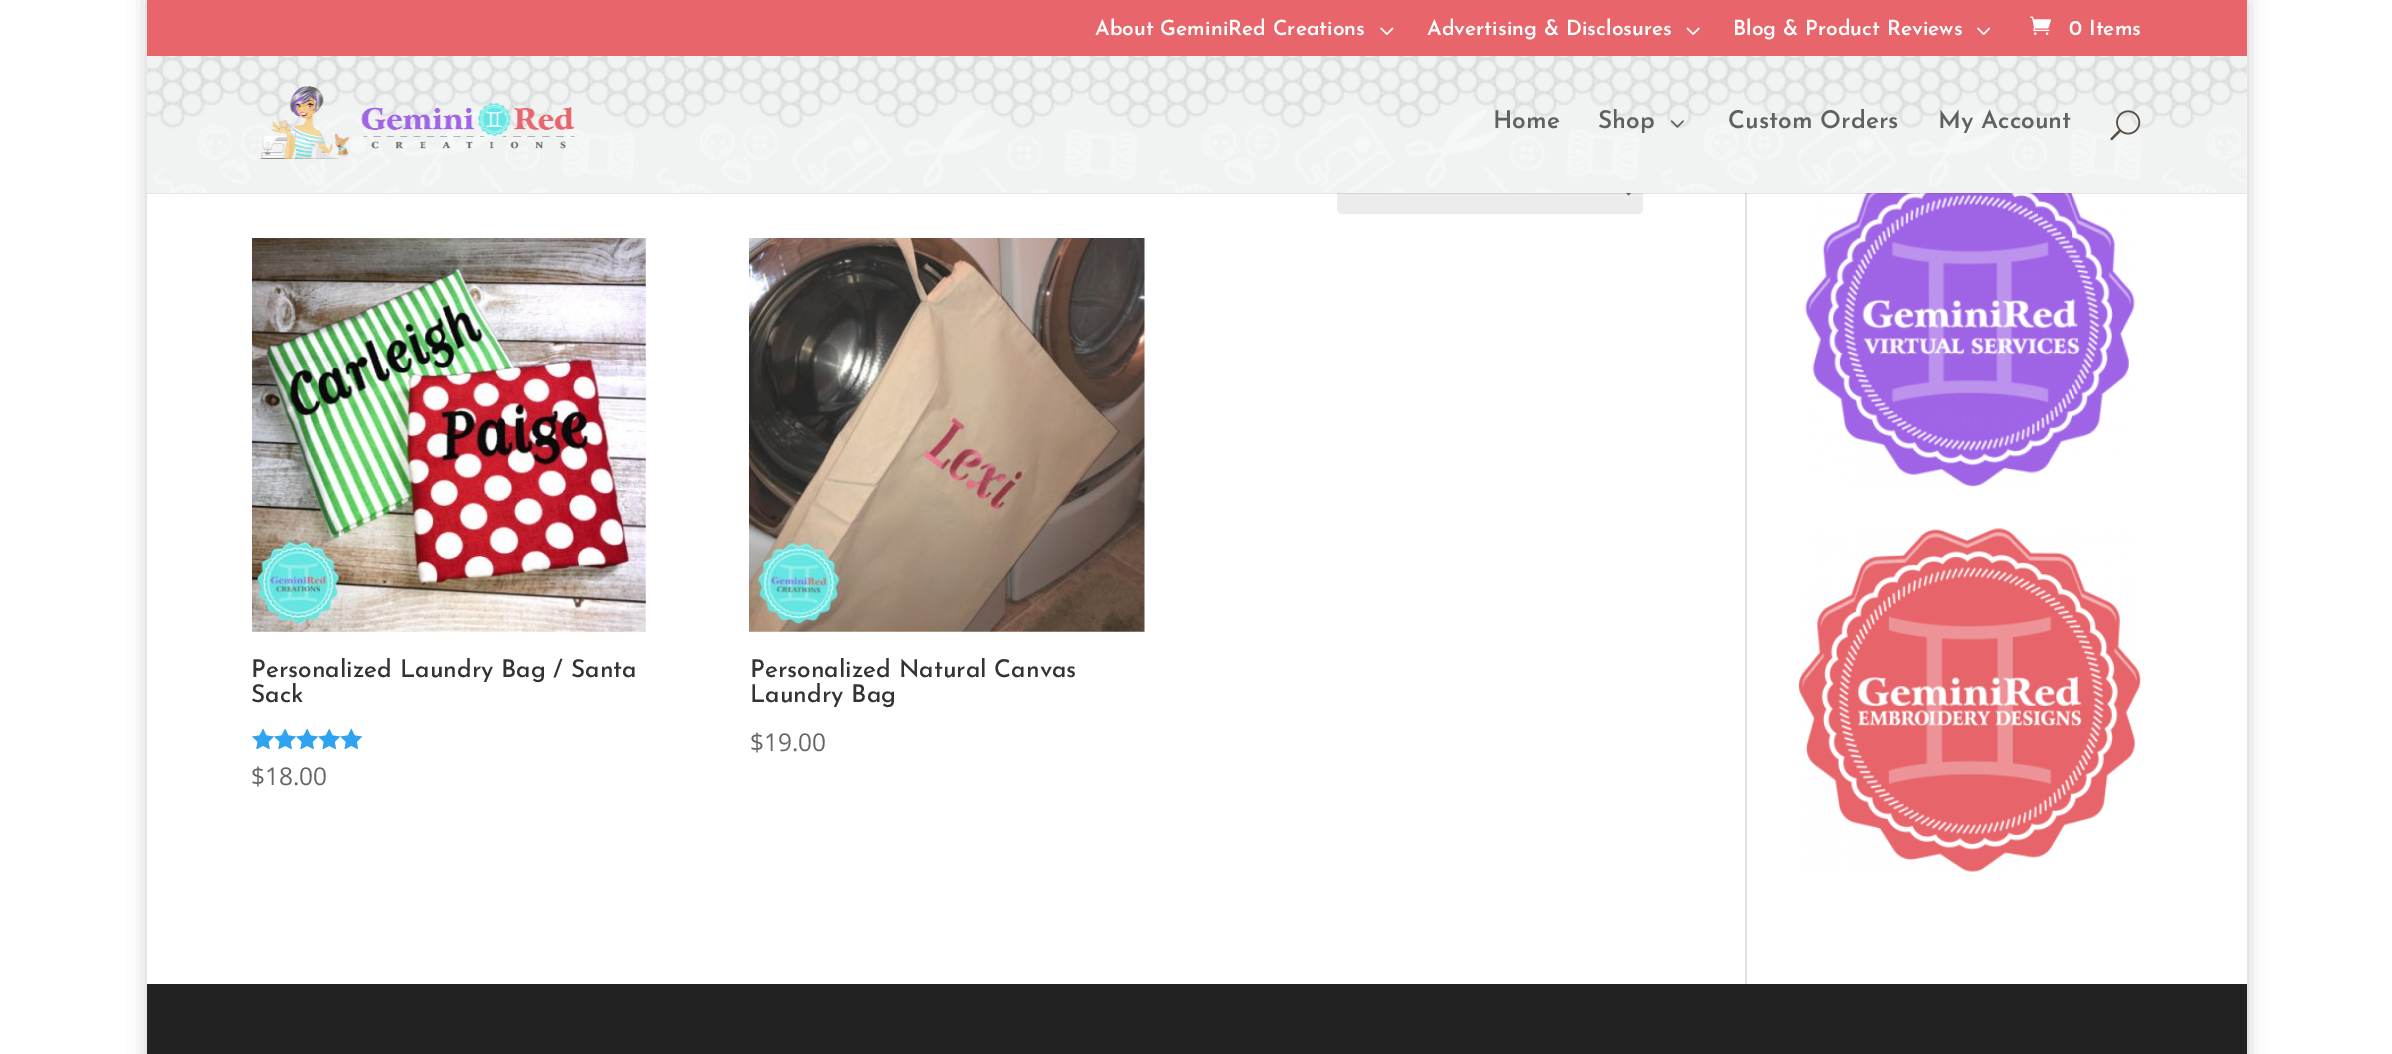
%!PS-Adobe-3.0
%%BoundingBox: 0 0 2392 1054
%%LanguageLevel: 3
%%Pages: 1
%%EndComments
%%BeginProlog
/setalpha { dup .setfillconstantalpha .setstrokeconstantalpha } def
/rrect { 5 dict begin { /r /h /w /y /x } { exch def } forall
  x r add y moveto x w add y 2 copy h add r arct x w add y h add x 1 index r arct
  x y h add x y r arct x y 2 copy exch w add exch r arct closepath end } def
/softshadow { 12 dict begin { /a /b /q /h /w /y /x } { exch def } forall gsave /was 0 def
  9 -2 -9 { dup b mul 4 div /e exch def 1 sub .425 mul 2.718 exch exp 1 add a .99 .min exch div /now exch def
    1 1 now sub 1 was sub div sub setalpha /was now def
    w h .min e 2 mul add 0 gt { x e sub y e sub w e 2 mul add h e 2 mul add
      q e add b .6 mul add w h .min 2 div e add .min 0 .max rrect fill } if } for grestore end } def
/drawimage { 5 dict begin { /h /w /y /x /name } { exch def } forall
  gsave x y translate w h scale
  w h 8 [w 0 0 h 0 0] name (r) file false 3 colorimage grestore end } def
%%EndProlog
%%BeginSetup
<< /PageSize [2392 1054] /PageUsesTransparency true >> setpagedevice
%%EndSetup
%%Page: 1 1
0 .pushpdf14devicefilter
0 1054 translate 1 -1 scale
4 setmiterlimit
1 setgray
0 0 2392 1054 rectfill
gsave
newpath 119 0 moveto 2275 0 lineto 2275 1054 lineto 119 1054 lineto closepath 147 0 moveto 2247 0 lineto 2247 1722 lineto 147 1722 lineto closepath eoclip newpath
0 setgray
147 0 2100 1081 0 9 0.2 softshadow
grestore
0.906 0.396 0.42 setrgbcolor
147 0 2100 56 rectfill
(images/1.raw) 1380 27 14 8 drawimage
(images/2.raw) 1686 27 14 8 drawimage
(images/3.raw) 1977 27 14 8 drawimage
(images/4.raw) 2030 16 21 19 drawimage
0.925 setgray
1337 166 306 48 5 rrect fill
0.4 setgray
3.5 setlinewidth
newpath 1621.5 186 moveto 1628.5 193 lineto 1635.5 186 lineto stroke
(images/13.raw) 1805 193 330 294 drawimage
0.886 setgray
1745 193 2 791 rectfill
0.1 setalpha
0 setgray
147 192 2100 2 rectfill
1 setalpha
(images/5.raw) 147 56 2100 137 drawimage
(images/6.raw) 258 86 317 73 drawimage
(images/7.raw) 1670 120 14 8 drawimage
(images/8.raw) 2110 110 31 31 drawimage
(images/9.raw) 252 238 394 394 drawimage
(images/10.raw) 252 728 110 21 drawimage
(images/11.raw) 252 728 111 21 drawimage
(images/12.raw) 749 238 396 394 drawimage
(images/14.raw) 1799 528 342 344 drawimage
0.133 setgray
147 984 2100 70 rectfill
/JosefinSans-SemiBold [21 0 0 -21 0 0] selectfont
1 setgray
1095 35 moveto (About GeminiRed Creations) show
1427 35 moveto (Advertising & Disclosures) show
1733 35 moveto (Blog & Product Reviews) show
2069 35 moveto (0 Items) show
/JosefinSans-SemiBold [24.5 0 0 -24.5 0 0] selectfont
0.373 0.376 0.376 setrgbcolor
1493 128 moveto (Home) show
1598 128 moveto (Shop) show
1728 128 moveto (Custom Orders) show
1938 128 moveto (My Account) show
/JosefinSans-Medium [24.5 0 0 -24.5 0 0] selectfont
0.2 setgray
251 677 moveto (Personalized Laundry Bag / Santa) show
251 702 moveto (Sack) show
/OpenSans-Regular [24.5 0 0 -24.5 0 0] selectfont
0.4 setgray
251 785 moveto ($18.00) show
/JosefinSans-Medium [24.5 0 0 -24.5 0 0] selectfont
0.2 setgray
750 677 moveto (Personalized Natural Canvas) show
750 702 moveto (Laundry Bag) show
/OpenSans-Regular [24.5 0 0 -24.5 0 0] selectfont
0.4 setgray
750 751 moveto ($19.00) show
.poppdf14devicefilter showpage
%%EOF
